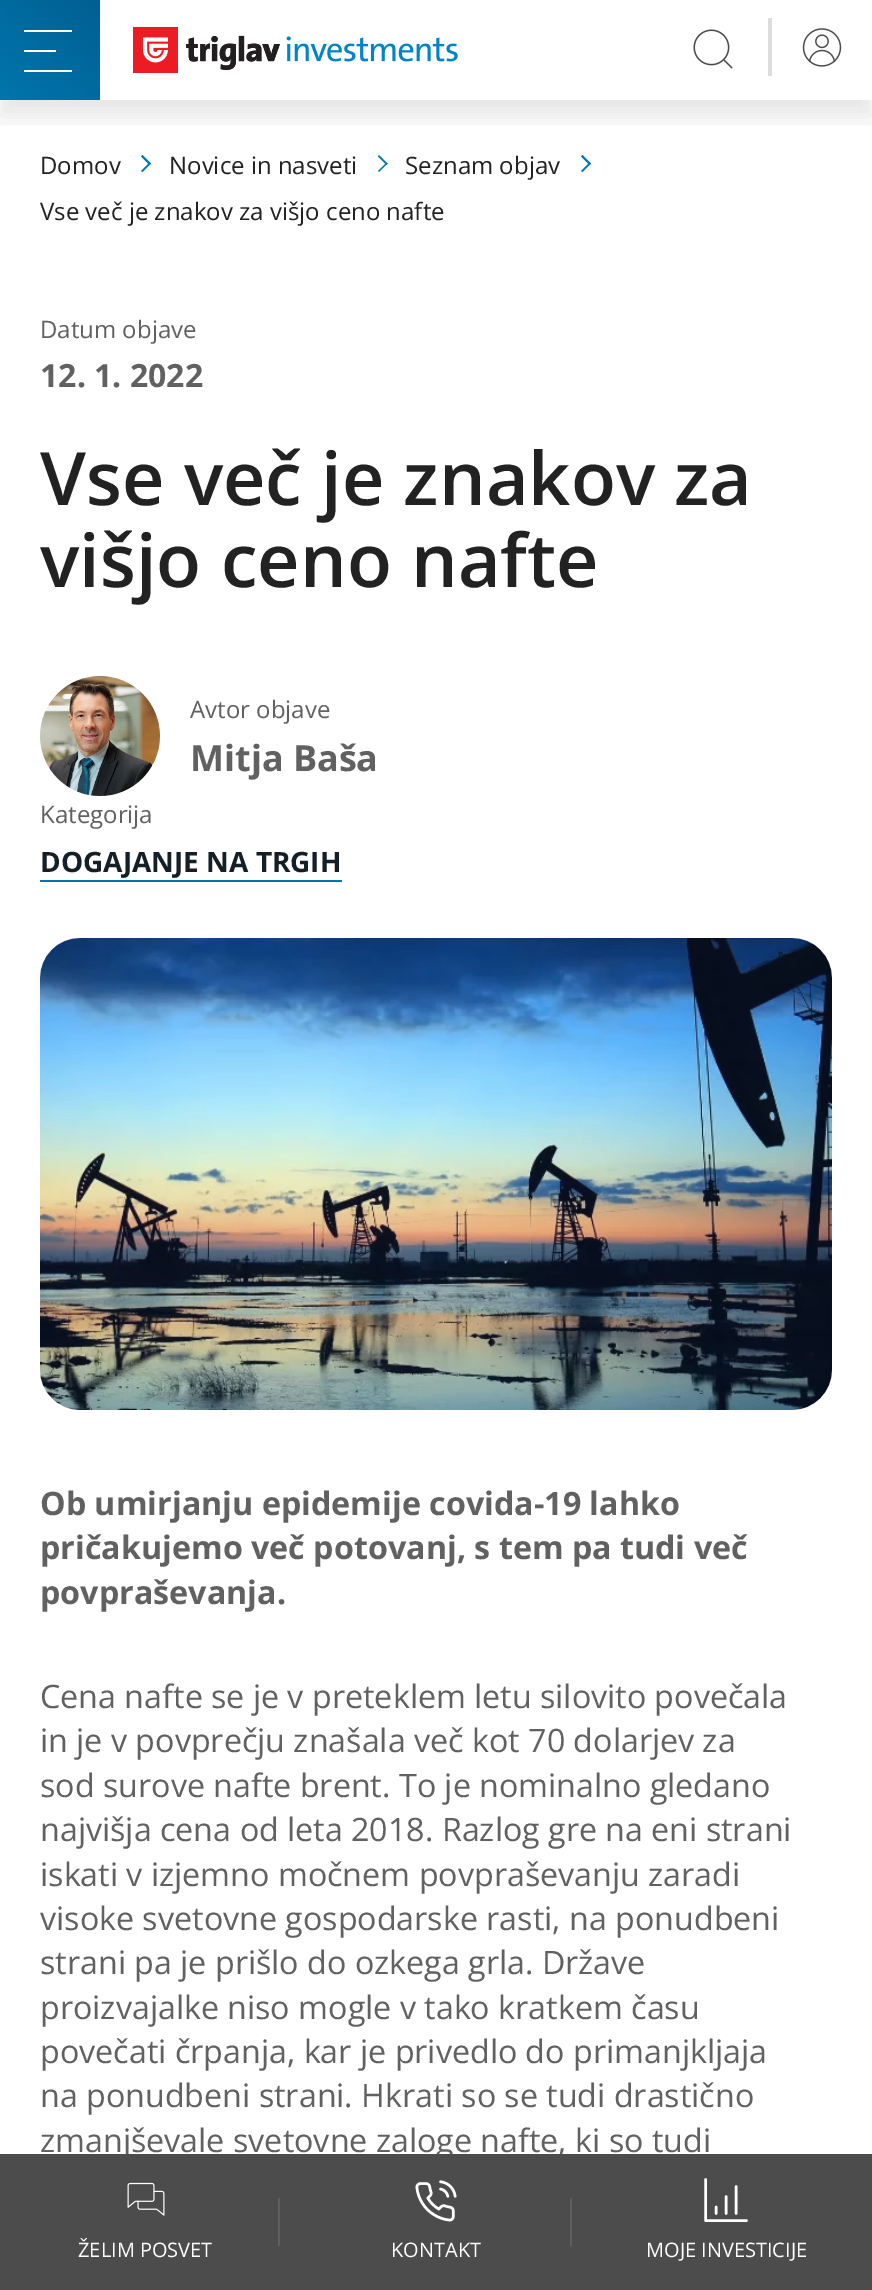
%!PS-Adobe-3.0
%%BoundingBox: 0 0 872 2290
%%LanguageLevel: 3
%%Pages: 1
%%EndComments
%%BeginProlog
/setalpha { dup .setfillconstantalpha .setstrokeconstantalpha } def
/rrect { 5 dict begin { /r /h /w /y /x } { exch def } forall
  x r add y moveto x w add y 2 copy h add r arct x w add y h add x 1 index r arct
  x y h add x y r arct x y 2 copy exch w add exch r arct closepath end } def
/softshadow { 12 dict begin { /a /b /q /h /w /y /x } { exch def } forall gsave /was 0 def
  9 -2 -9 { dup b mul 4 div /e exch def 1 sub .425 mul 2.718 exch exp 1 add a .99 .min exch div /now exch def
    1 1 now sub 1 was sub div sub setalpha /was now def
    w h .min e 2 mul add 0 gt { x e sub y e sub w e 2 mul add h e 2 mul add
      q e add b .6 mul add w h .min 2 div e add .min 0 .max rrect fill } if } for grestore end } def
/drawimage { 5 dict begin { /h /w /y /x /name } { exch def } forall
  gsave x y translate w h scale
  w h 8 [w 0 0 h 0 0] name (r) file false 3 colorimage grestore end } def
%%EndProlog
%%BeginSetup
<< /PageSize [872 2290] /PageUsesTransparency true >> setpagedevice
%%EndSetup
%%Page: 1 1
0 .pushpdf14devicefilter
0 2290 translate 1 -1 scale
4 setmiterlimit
1 setgray
0 0 872 2290 rectfill
gsave
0 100 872 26 rectclip
0 setgray
0 16 872 100 0 12 0.1 softshadow
grestore
gsave newpath 0 0 moveto 100 0 lineto 100 100 lineto 0 100 lineto closepath clip newpath
<< /ShadingType 2 /ColorSpace /DeviceRGB /Coords [0 100 100 0] /Extend [true true] /Function << /FunctionType 2 /Domain [0 1] /C0 [0 0.463 0.678] /C1 [0.004 0.373 0.573] /N 1 >> >> shfill grestore
24 50 32 2 rectfill
24 30 48 2 rectfill
24 70 48 2 rectfill
(images/1.raw) 133 27 325 46 drawimage
(images/2.raw) 693 29 40 40 drawimage
0.867 setgray
768 18 4 58 rectfill
(images/3.raw) 802 28 40 39 drawimage
0 0.463 0.678 setrgbcolor
newpath 142.5 155 moveto 151 163.5 lineto 149.5 165 lineto 141 156.5 lineto closepath fill
newpath 149.5 162.5 moveto 151 163.5 lineto 142.5 172 lineto 141 171 lineto closepath fill
newpath 379 155 moveto 387.5 163.5 lineto 386.5 165 lineto 378 156.5 lineto closepath fill
newpath 386.5 162.5 moveto 387.5 163.5 lineto 379 172 lineto 378 171 lineto closepath fill
newpath 582.5 155 moveto 591 163.5 lineto 589.5 165 lineto 581 156.5 lineto closepath fill
newpath 589.5 162.5 moveto 591 163.5 lineto 582.5 172 lineto 581 171 lineto closepath fill
(images/4.raw) 40 676 120 120 drawimage
40 880 302 2 rectfill
(images/5.raw) 40 938 792 472 drawimage
0.1 setalpha
0.204 0.486 1 setrgbcolor
40 938 792 472 40 rrect fill
/OpenSans-Regular [24 0 0 -24 0 0] selectfont
1 setalpha
0.133 setgray
40 174 moveto (Domov) show
169 174 moveto (Novice in nasveti) show
405 174 moveto (Seznam objav) show
40 220 moveto (Vse več je znakov za višjo ceno nafte) show
0.38 setgray
40 338 moveto (Datum objave) show
/OpenSans-Bold [32 0 0 -32 0 0] selectfont
40 387 moveto (12. 1. 2022) show
/OpenSans-SemiBold [73.75 0 0 -73.75 0 0] selectfont
0.133 setgray
40 505 moveto (Vse več je znakov za) show
40 587 moveto (višjo ceno nafte) show
/OpenSans-Regular [24 0 0 -24 0 0] selectfont
0.38 setgray
190 718 moveto (Avtor objave) show
/OpenSans-Bold [36 0 0 -36 0 0] selectfont
190 771 moveto (Mitja Baša) show
/OpenSans-Regular [24 0 0 -24 0 0] selectfont
40 823 moveto (Kategorija) show
/OpenSans-Bold [28 0 0 -28 0 0] selectfont
0.078 0.125 0.153 setrgbcolor
40 872 moveto (DOGAJANJE NA TRGIH) show
/OpenSans-Bold [32.25 0 0 -32.25 0 0] selectfont
0.38 setgray
40 1515 moveto (Ob umirjanju epidemije covida-19 lahko) show
40 1559 moveto (pričakujemo več potovanj, s tem pa tudi več) show
40 1604 moveto (povpraševanja.) show
/OpenSans-Regular [32.25 0 0 -32.25 0 0] selectfont
40 1708 moveto (Cena nafte se je v preteklem letu silovito povečala) show
40 1752 moveto (in je v povprečju znašala več kot 70 dolarjev za) show
40 1797 moveto (sod surove nafte brent. To je nominalno gledano) show
40 1841 moveto (najvišja cena od leta 2018. Razlog gre na eni strani) show
40 1886 moveto (iskati v izjemno močnem povpraševanju zaradi) show
40 1930 moveto (visoke svetovne gospodarske rasti, na ponudbeni) show
40 1974 moveto (strani pa je prišlo do ozkega grla. Države) show
40 2019 moveto (proizvajalke niso mogle v tako kratkem času) show
40 2063 moveto (povečati črpanja, kar je privedlo do primanjkljaja) show
40 2107 moveto (na ponudbeni strani. Hkrati so se tudi drastično) show
40 2152 moveto (zmanjševale svetovne zaloge nafte, ki so tudi) show
0.298 setgray
0 2154 872 136 rectfill
0.373 setgray
278 2198 2 48 rectfill
(images/6.raw) 127 2182 38 34 drawimage
/OpenSans-Regular [20 0 0 -20 0 0] selectfont
1 setgray
78 2257 moveto (ŽELIM POSVET) show
0.373 setgray
570 2198 2 48 rectfill
(images/7.raw) 415 2180 42 42 drawimage
1 setgray
391 2257 moveto (KONTAKT) show
2.5 setlinewidth
1 setlinecap
1 setlinejoin
newpath 705.5 2179.5 moveto 705.5 2220.5 lineto 746.5 2220.5 lineto 726 2213.5 moveto 726 2196.5 lineto 736 2213.5 moveto 736 2186.5 lineto 716 2213.5 moveto 716 2207 lineto stroke
646 2257 moveto (MOJE INVESTICIJE) show
.poppdf14devicefilter showpage
%%EOF
